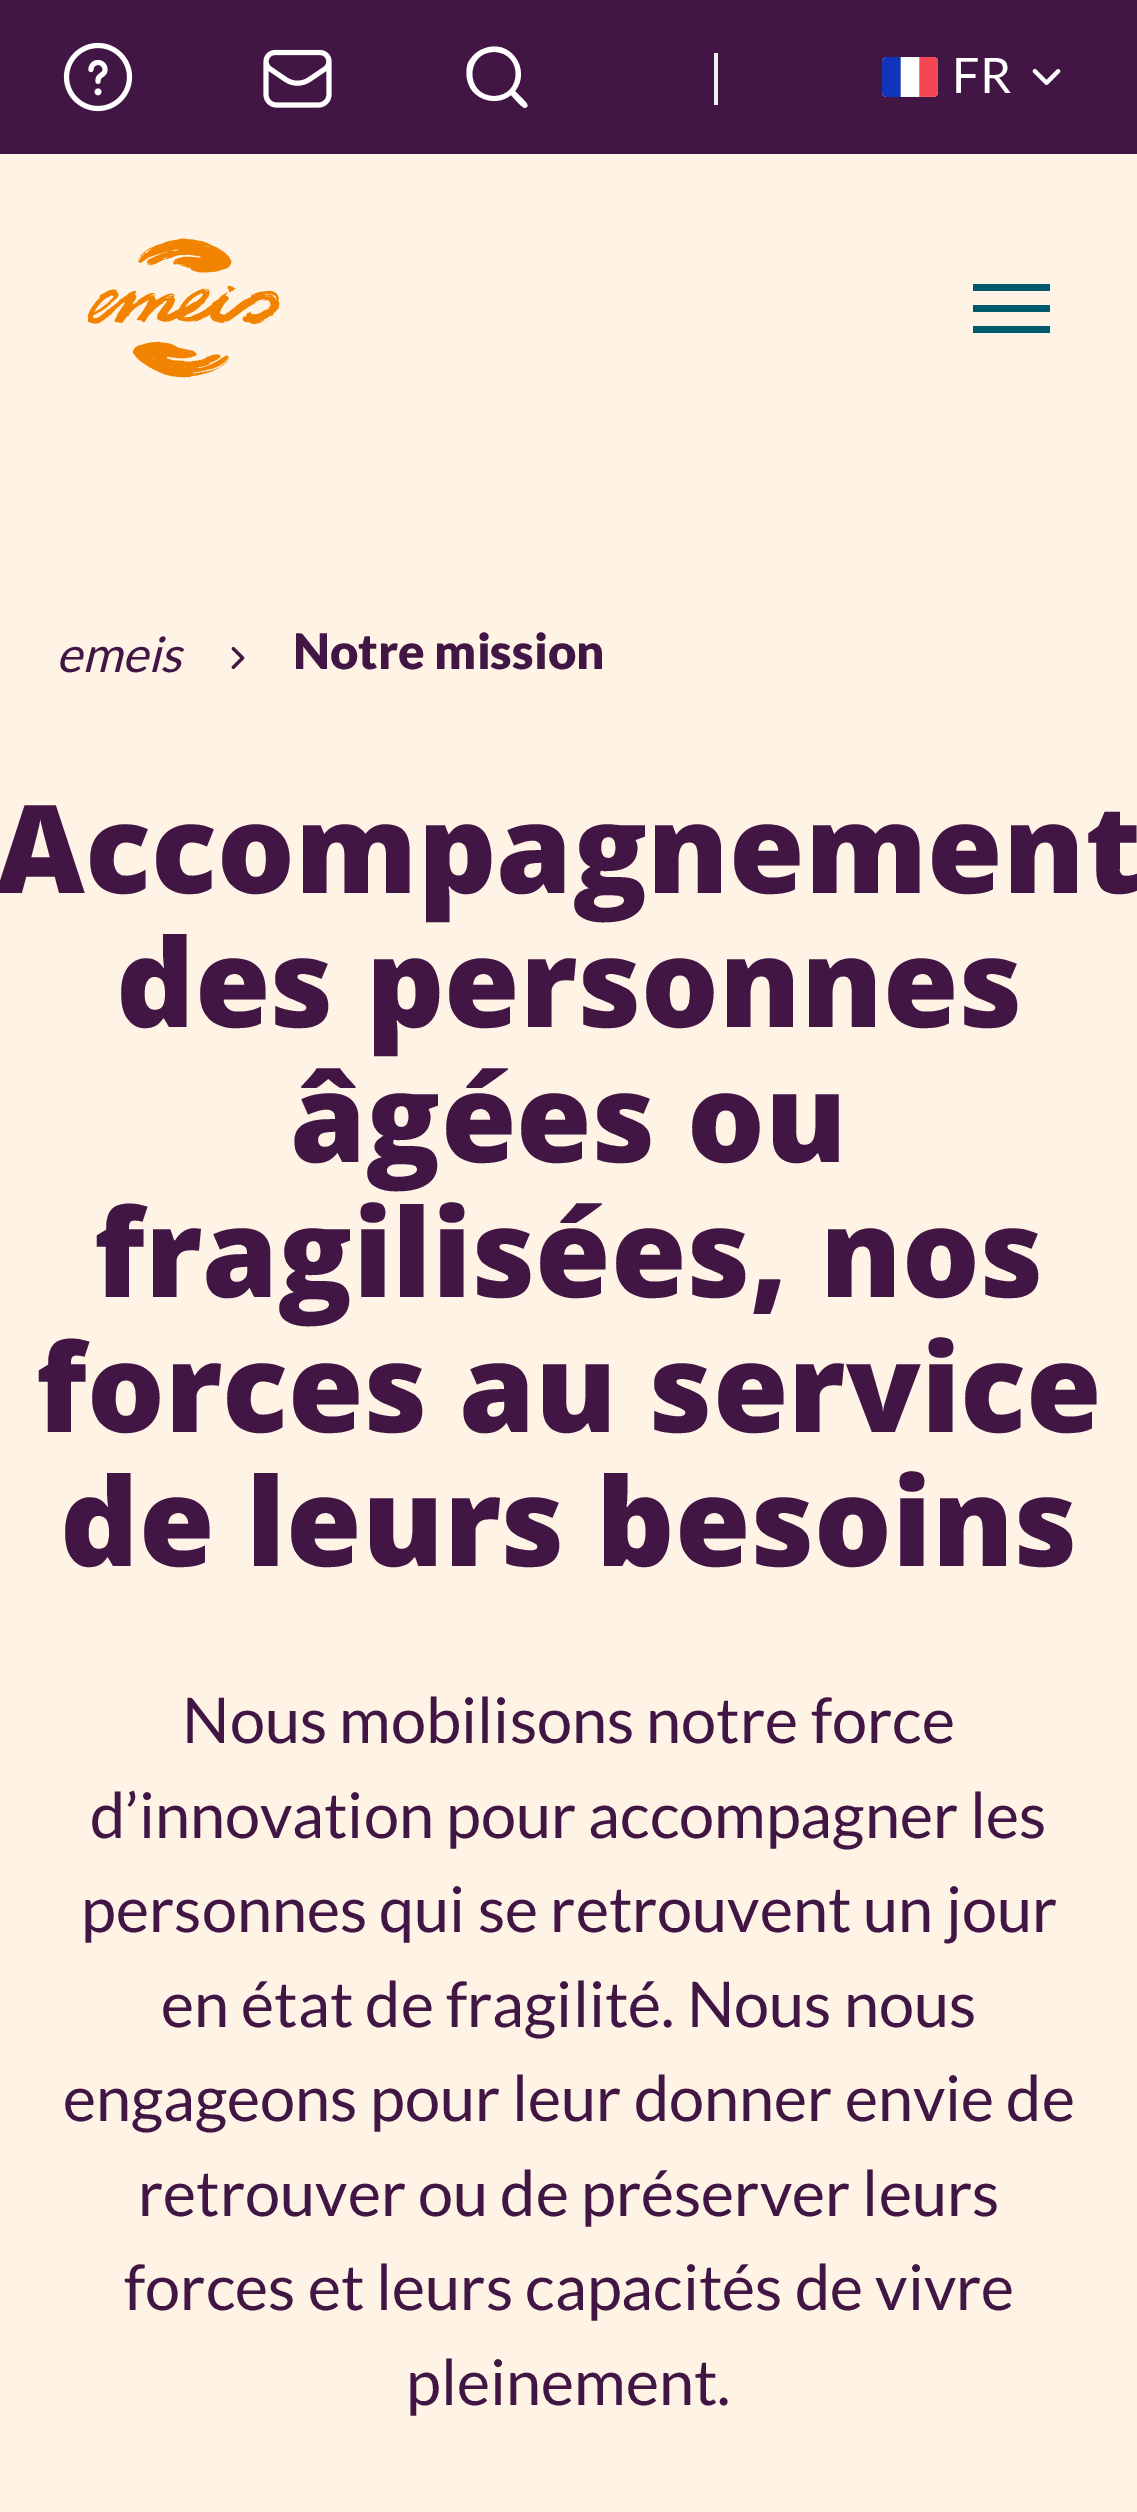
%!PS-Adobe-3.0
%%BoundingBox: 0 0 1137 2512
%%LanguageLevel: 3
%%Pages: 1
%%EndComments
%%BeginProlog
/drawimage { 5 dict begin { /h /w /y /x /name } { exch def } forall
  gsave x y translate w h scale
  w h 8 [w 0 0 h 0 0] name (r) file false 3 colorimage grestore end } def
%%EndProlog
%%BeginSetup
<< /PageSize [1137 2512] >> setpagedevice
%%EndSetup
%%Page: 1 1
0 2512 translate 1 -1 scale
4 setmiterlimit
0.996 0.953 0.898 setrgbcolor
0 0 1137 2512 rectfill
0.255 0.086 0.267 setrgbcolor
0 0 1137 154 rectfill
(images/1.raw) 63 42 70 70 drawimage
(images/2.raw) 263 49 69 59 drawimage
1 setgray
newpath 525 108 moveto 522 108 513 97 511 95 curveto 499 105 480 102 471 89 curveto 466 81 465 72 468 63 curveto 471 57 477 51 483 49 curveto 510 37 532 70 515 91 curveto 523 99 lineto 524 101 529 104 527 107 curveto closepath 494 52 moveto 465 52 465 96 494 96 curveto 523 96 523 52 494 52 curveto closepath fill
0.949 setgray
714 53 4 52 rectfill
(images/3.raw) 882 57 56 40 drawimage
(images/4.raw) 1032 68 29 17 drawimage
(images/5.raw) 88 238 192 140 drawimage
0 0.353 0.427 setrgbcolor
973 305 77 7 rectfill
973 284 77 7 rectfill
973 326 77 7 rectfill
(images/6.raw) 231 646 14 23 drawimage
/Lato-Regular [49 0 0 -49 0 0] selectfont
1 setgray
952 93 moveto (FR) show
/Lato-Italic [49 0 0 -49 0 0] selectfont
0.255 0.086 0.267 setrgbcolor
56 672 moveto (emeis) show
/Lato-Black [49 0 0 -49 0 0] selectfont
293 669 moveto (Notre mission) show
/OpenSans-ExtraBold [122.5 0 0 -122.5 0 0] selectfont
-4 893 moveto (Accompagnement) show
116 1027 moveto (des personnes) show
290 1162 moveto (âgées ou) show
94 1297 moveto (fragilisées, nos) show
36 1432 moveto (forces au service) show
60 1566 moveto (de leurs besoins) show
/Lato-Regular [63 0 0 -63 0 0] selectfont
182 1743 moveto (Nous mobilisons notre force) show
90 1838 moveto (d’innovation pour accompagner les) show
81 1932 moveto (personnes qui se retrouvent un jour) show
161 2027 moveto (en état de fragilité. Nous nous) show
63 2121 moveto (engageons pour leur donner envie de) show
138 2216 moveto (retrouver ou de préserver leurs) show
124 2310 moveto (forces et leurs capacités de vivre) show
406 2405 moveto (pleinement.) show
showpage
%%EOF
